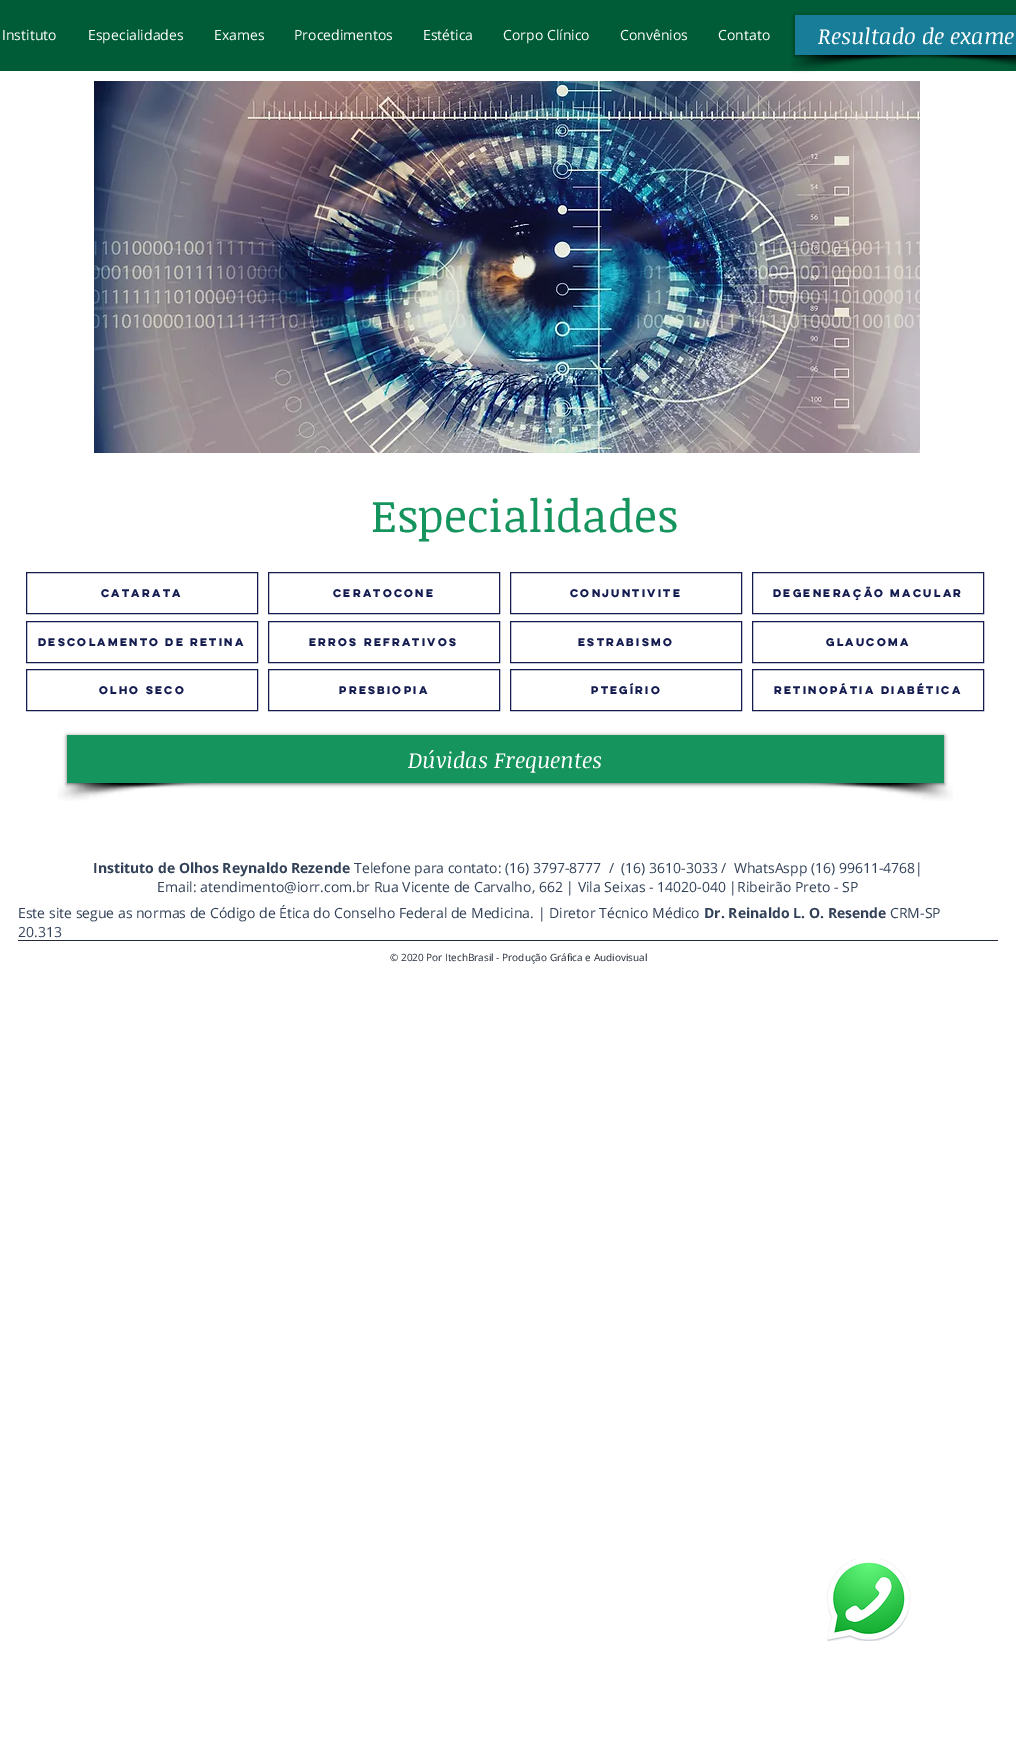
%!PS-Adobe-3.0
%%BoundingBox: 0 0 1016 1744
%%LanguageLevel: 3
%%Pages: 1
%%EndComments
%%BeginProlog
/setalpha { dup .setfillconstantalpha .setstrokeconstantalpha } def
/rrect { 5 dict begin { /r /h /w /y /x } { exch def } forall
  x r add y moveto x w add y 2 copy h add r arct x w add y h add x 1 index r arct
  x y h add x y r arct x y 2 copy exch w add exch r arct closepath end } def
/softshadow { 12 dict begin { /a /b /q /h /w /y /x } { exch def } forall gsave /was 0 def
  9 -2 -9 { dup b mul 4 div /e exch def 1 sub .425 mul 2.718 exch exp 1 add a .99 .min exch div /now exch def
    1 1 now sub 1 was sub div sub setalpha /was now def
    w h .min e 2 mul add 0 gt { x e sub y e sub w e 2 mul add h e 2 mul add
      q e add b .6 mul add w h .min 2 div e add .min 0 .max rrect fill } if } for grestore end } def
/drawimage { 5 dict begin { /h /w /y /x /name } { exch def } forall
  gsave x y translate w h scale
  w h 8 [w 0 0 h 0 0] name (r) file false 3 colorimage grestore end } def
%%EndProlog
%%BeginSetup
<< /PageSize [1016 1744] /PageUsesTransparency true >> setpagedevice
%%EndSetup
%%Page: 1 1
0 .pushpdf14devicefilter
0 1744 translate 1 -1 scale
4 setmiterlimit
1 setgray
0 0 1016 1744 rectfill
0 0.361 0.216 setrgbcolor
0 0 1016 71 rectfill
(images/1.raw) 790 55 137 18 drawimage
(images/2.raw) 916 55 100 12 drawimage
0 setgray
795 16 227 40 0 2 0.6 softshadow
0.094 0.49 0.6 setrgbcolor
795 15 221 40 rectfill
(images/3.raw) 94 81 826 372 drawimage
0.078 0.106 0.31 setrgbcolor
26.5 572.5 231 41 rectstroke
268.5 572.5 231 41 rectstroke
510.5 572.5 231 41 rectstroke
752.5 572.5 231 41 rectstroke
26.5 621.5 231 41 rectstroke
268.5 621.5 231 41 rectstroke
510.5 621.5 231 41 rectstroke
752.5 621.5 231 41 rectstroke
26.5 669.5 231 41 rectstroke
268.5 669.5 231 41 rectstroke
510.5 669.5 231 41 rectstroke
752.5 669.5 231 41 rectstroke
(images/4.raw) 58 783 154 18 drawimage
(images/5.raw) 799 783 154 18 drawimage
0 setgray
67 736 877 48 0 2 0.6 softshadow
0.086 0.58 0.365 setrgbcolor
67 735 877 48 rectfill
0.133 0.165 0.212 setrgbcolor
18 940 980 1 rectfill
(images/6.raw) 827 1559 84 82 drawimage
/OpenSans-Regular [14 0 0 -14 0 0] selectfont
1 setgray
2 40 moveto (Instituto) show
88 40 moveto (Especialidades) show
214 40 moveto (Exames) show
294 40 moveto (Procedimentos) show
423 40 moveto (Estética) show
503 40 moveto (Corpo Clínico) show
620 40 moveto (Convênios) show
718 40 moveto (Contato) show
/NoticiaText-Italic [22 0 0 -22 0 0] selectfont
818 44 moveto (Resultado de exame) show
/NoticiaText-Regular [45 0 0 -45 0 0] selectfont
0.086 0.58 0.365 setrgbcolor
371 532 moveto (Especialidades) show
/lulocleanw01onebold-Bold [10 0 0 -10 0 0] selectfont
0.078 0.106 0.31 setrgbcolor
101 597 moveto (Catarata) show
333 597 moveto (ceratocone) show
570 597 moveto (conjuntivite) show
773 597 moveto (Degeneração Macular) show
38 646 moveto (Descolamento de Retina) show
309 646 moveto (erros refrativos) show
578 646 moveto (Estrabismo) show
826 646 moveto (Glaucoma) show
99 694 moveto (Olho Seco) show
339 694 moveto (Presbiopia) show
591 694 moveto (Ptegírio) show
774 694 moveto (Retinopátia Diabética) show
/NoticiaText-Italic [22 0 0 -22 0 0] selectfont
1 setgray
408 768 moveto (Dúvidas Frequentes) show
/OpenSans-Bold [14 0 0 -14 0 0] selectfont
0.196 0.255 0.341 setrgbcolor
93 873 moveto (Instituto de Olhos Reynaldo Rezende) show
/OpenSans-Regular [14 0 0 -14 0 0] selectfont
354 873 moveto (Telefone para contato: \(16\) 3797-8777  /  \(16\) 3610-3033 /  WhatsAspp \(16\) 99611-4768|) show
157 892 moveto (Email: atendimento@iorr.com.br Rua Vicente de Carvalho, 662 | Vila Seixas - 14020-040 |Ribeirão Preto - SP) show
18 918 moveto (Este site segue as normas de Código de Ética do Conselho Federal de Medicina. | Diretor Técnico Médico) show
/OpenSans-Bold [14 0 0 -14 0 0] selectfont
704 918 moveto (Dr. Reinaldo L. O. Resende) show
/OpenSans-Regular [14 0 0 -14 0 0] selectfont
890 918 moveto (CRM-SP) show
18 937 moveto (20.313) show
/OpenSans-Regular [10 0 0 -10 0 0] selectfont
0.133 0.165 0.212 setrgbcolor
390 961 moveto (© 2020 Por ItechBrasil - Produção Gráfica e Audiovisual) show
.poppdf14devicefilter showpage
%%EOF
